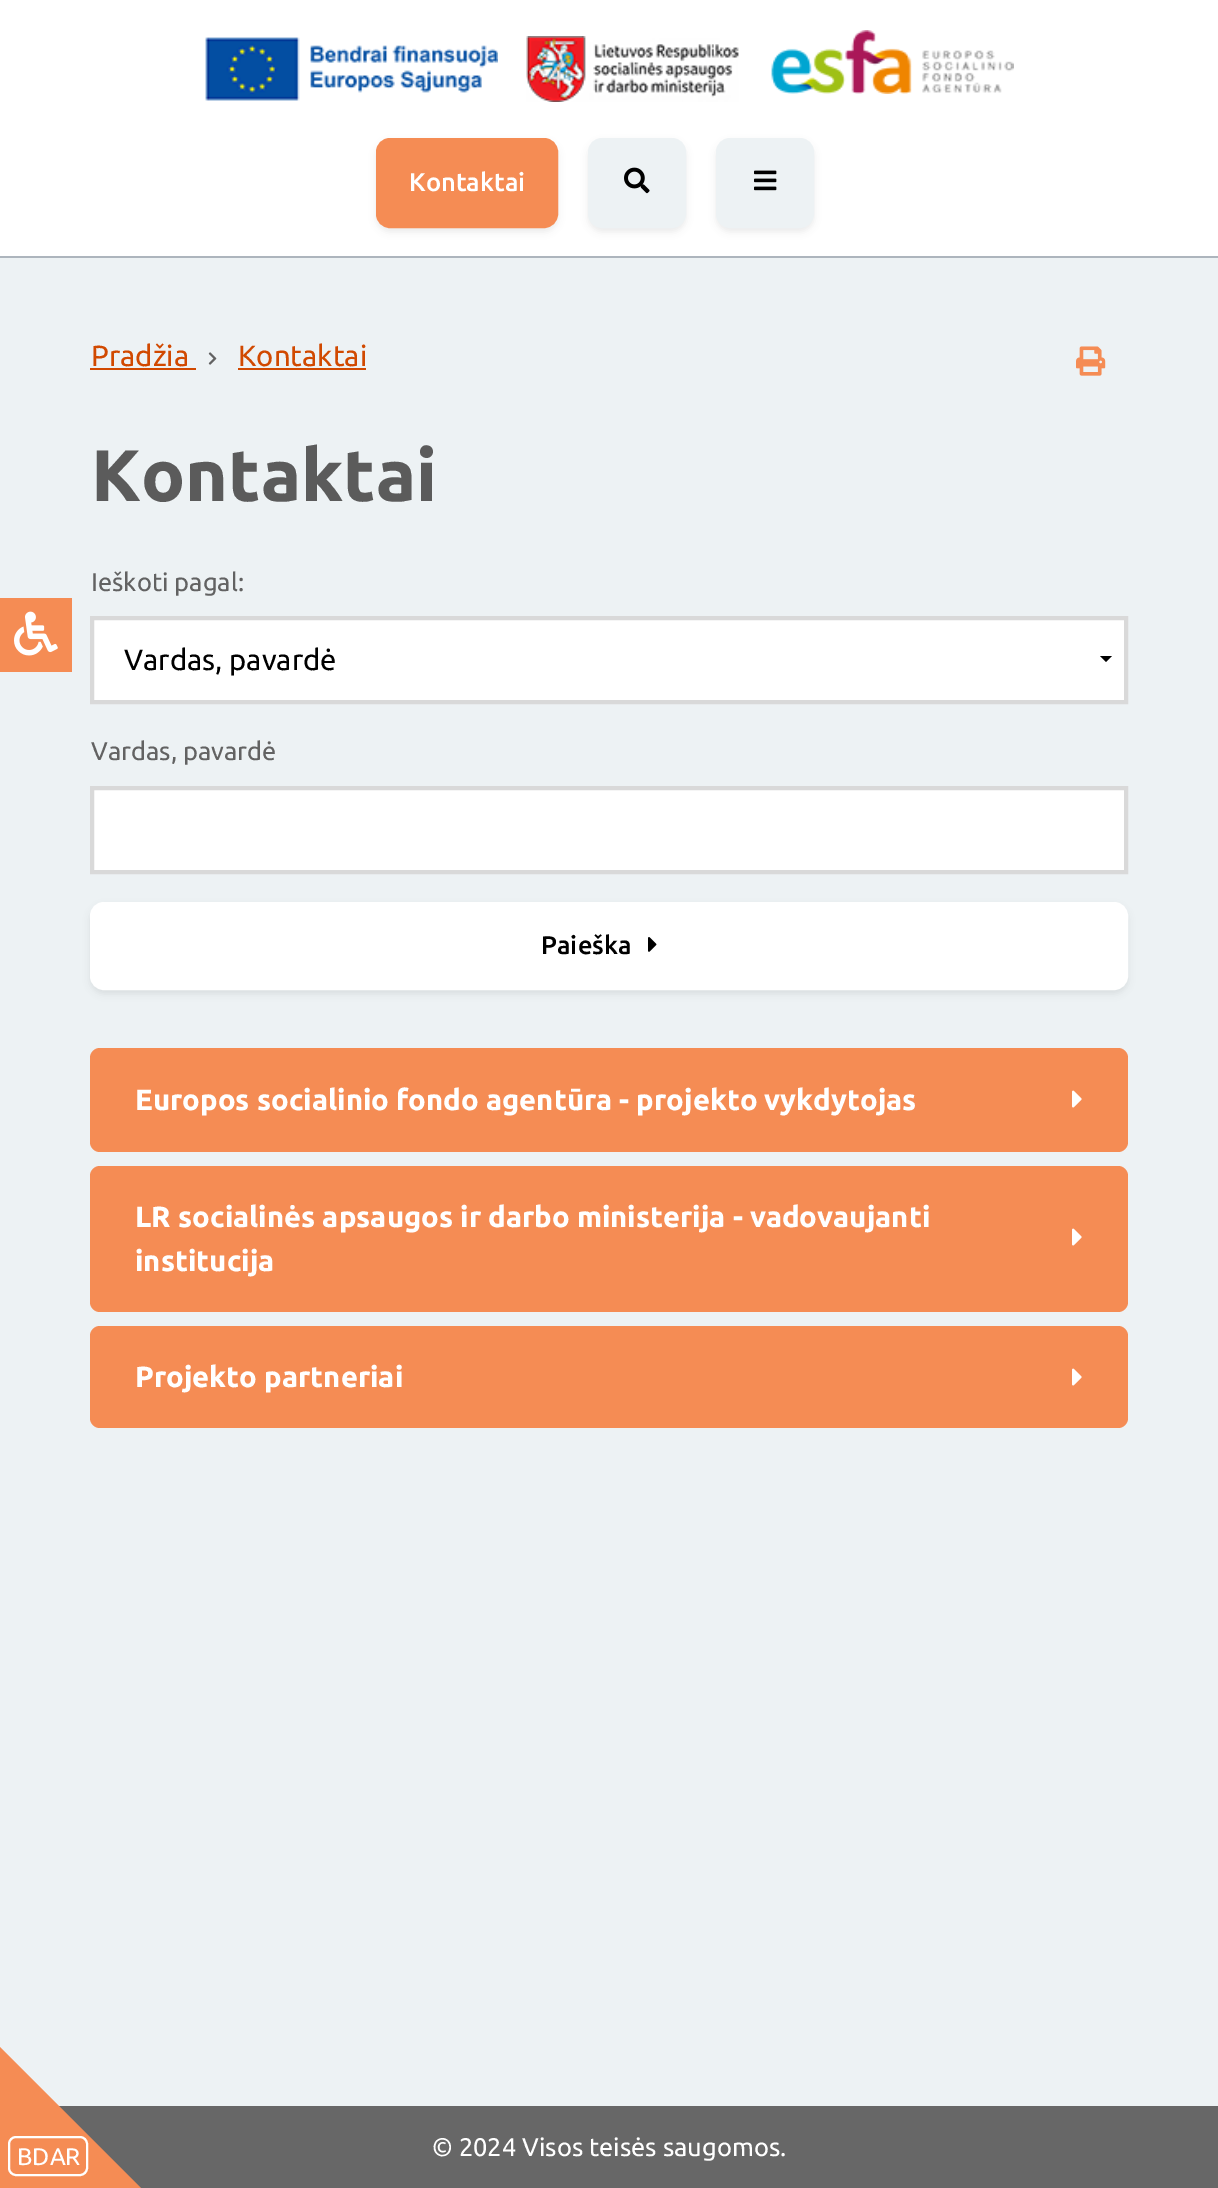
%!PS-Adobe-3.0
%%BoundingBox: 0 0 1218 2188
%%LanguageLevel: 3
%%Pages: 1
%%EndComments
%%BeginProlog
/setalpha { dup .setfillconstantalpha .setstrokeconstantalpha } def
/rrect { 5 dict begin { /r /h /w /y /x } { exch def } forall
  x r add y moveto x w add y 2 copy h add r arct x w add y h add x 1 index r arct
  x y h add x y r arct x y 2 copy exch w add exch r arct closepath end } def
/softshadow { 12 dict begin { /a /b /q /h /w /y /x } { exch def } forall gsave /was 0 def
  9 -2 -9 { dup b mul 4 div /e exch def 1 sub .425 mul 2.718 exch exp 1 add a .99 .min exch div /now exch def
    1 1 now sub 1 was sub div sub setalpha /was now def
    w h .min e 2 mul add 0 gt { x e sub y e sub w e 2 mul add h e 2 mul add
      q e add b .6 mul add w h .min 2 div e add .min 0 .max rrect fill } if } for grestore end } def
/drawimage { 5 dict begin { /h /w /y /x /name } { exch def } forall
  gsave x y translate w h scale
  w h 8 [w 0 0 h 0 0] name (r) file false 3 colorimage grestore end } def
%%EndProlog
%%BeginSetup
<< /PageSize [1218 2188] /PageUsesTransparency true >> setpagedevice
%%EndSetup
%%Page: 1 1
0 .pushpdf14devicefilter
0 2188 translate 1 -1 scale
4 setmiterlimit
0.929 0.949 0.957 setrgbcolor
0 0 1218 2188 rectfill
1 setgray
0 0 1218 256 rectfill
0.678 0.71 0.741 setrgbcolor
0 256 1218 2 rectfill
(images/1.raw) 205 37 293 64 drawimage
(images/2.raw) 526 36 213 66 drawimage
(images/3.raw) 771 30 243 64 drawimage
0 setgray
376 142 182 90 14 3.5 0.07 softshadow
0.961 0.549 0.329 setrgbcolor
378 140 178 86 12 rrect gsave fill grestore
4 setlinewidth
stroke
0 setgray
588 142 98 90 14 3.5 0.07 softshadow
0.929 0.949 0.957 setrgbcolor
590 140 94 86 12 rrect gsave fill grestore
stroke
(images/4.raw) 624 167 26 27 drawimage
0 setgray
716 142 98 90 14 3.5 0.07 softshadow
0.929 0.949 0.957 setrgbcolor
718 140 94 86 12 rrect gsave fill grestore
stroke
(images/5.raw) 754 170 23 21 drawimage
0.82 0.286 0 setrgbcolor
90 368 106 2 rectfill
(images/6.raw) 208 352 9 13 drawimage
238 368 128 2 rectfill
(images/7.raw) 1076 346 30 30 drawimage
1 setgray
newpath 92 618 moveto 1126 618 lineto 1126 702 lineto 92 702 lineto closepath gsave fill grestore
0.851 setgray
stroke
0 setgray
newpath 1100 656 moveto 1112 656 lineto 1106 662 lineto closepath fill
1 setgray
newpath 92 788 moveto 1126 788 lineto 1126 872 lineto 92 872 lineto closepath gsave fill grestore
0.851 setgray
stroke
0 setgray
90 906 1038 88 14 3.5 0.07 softshadow
1 setgray
92 904 1034 84 12 rrect gsave fill grestore
stroke
(images/8.raw) 648 937 9 15 drawimage
0.961 0.549 0.329 setrgbcolor
90 1048 1038 104 10 rrect fill
(images/9.raw) 1072 1090 10 18 drawimage
90 1166 1038 146 10 rrect fill
(images/9.raw) 1072 1228 10 18 drawimage
90 1326 1038 102 10 rrect fill
(images/9.raw) 1072 1368 10 18 drawimage
0.404 setgray
59 2106 1159 82 rectfill
0.961 0.549 0.329 setrgbcolor
newpath 0 2047 moveto 141 2188 lineto 0 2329 lineto -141 2188 lineto closepath fill
1 setgray
2 setlinewidth
9 2137 78 38 7 rrect stroke
0.961 0.549 0.329 setrgbcolor
0 598 72 74 rectfill
(images/10.raw) 14 611 44 45 drawimage
/Ubuntu-Medium [25.5 0 0 -25.5 0 0] selectfont
1 setgray
409 191 moveto (Kontaktai) show
/Ubuntu-Regular [29.25 0 0 -29.25 0 0] selectfont
0.82 0.286 0 setrgbcolor
91 366 moveto (Pradžia) show
238 366 moveto (Kontaktai) show
/Ubuntu-Bold [73 0 0 -73 0 0] selectfont
0.357 setgray
91 501 moveto (Kontaktai) show
/Ubuntu-Regular [25.5 0 0 -25.5 0 0] selectfont
0.384 setgray
91 591 moveto (Ieškoti pagal:) show
/Ubuntu-Regular [29.25 0 0 -29.25 0 0] selectfont
0 setgray
124 670 moveto (Vardas, pavardė) show
/Ubuntu-Regular [25.5 0 0 -25.5 0 0] selectfont
0.384 setgray
91 760 moveto (Vardas, pavardė) show
/Ubuntu-Medium [25.5 0 0 -25.5 0 0] selectfont
0 setgray
541 954 moveto (Paieška) show
/Ubuntu-Bold [29.25 0 0 -29.25 0 0] selectfont
1 setgray
135 1110 moveto (Europos socialinio fondo agentūra - projekto vykdytojas) show
135 1227 moveto (LR socialinės apsaugos ir darbo ministerija - vadovaujanti) show
135 1271 moveto (institucija) show
135 1387 moveto (Projekto partneriai) show
/Ubuntu-Regular [24 0 0 -24 0 0] selectfont
17 2165 moveto (BDAR) show
/Ubuntu-Regular [25.5 0 0 -25.5 0 0] selectfont
432 2156 moveto (© 2024 Visos teisės saugomos.) show
.poppdf14devicefilter showpage
%%EOF
